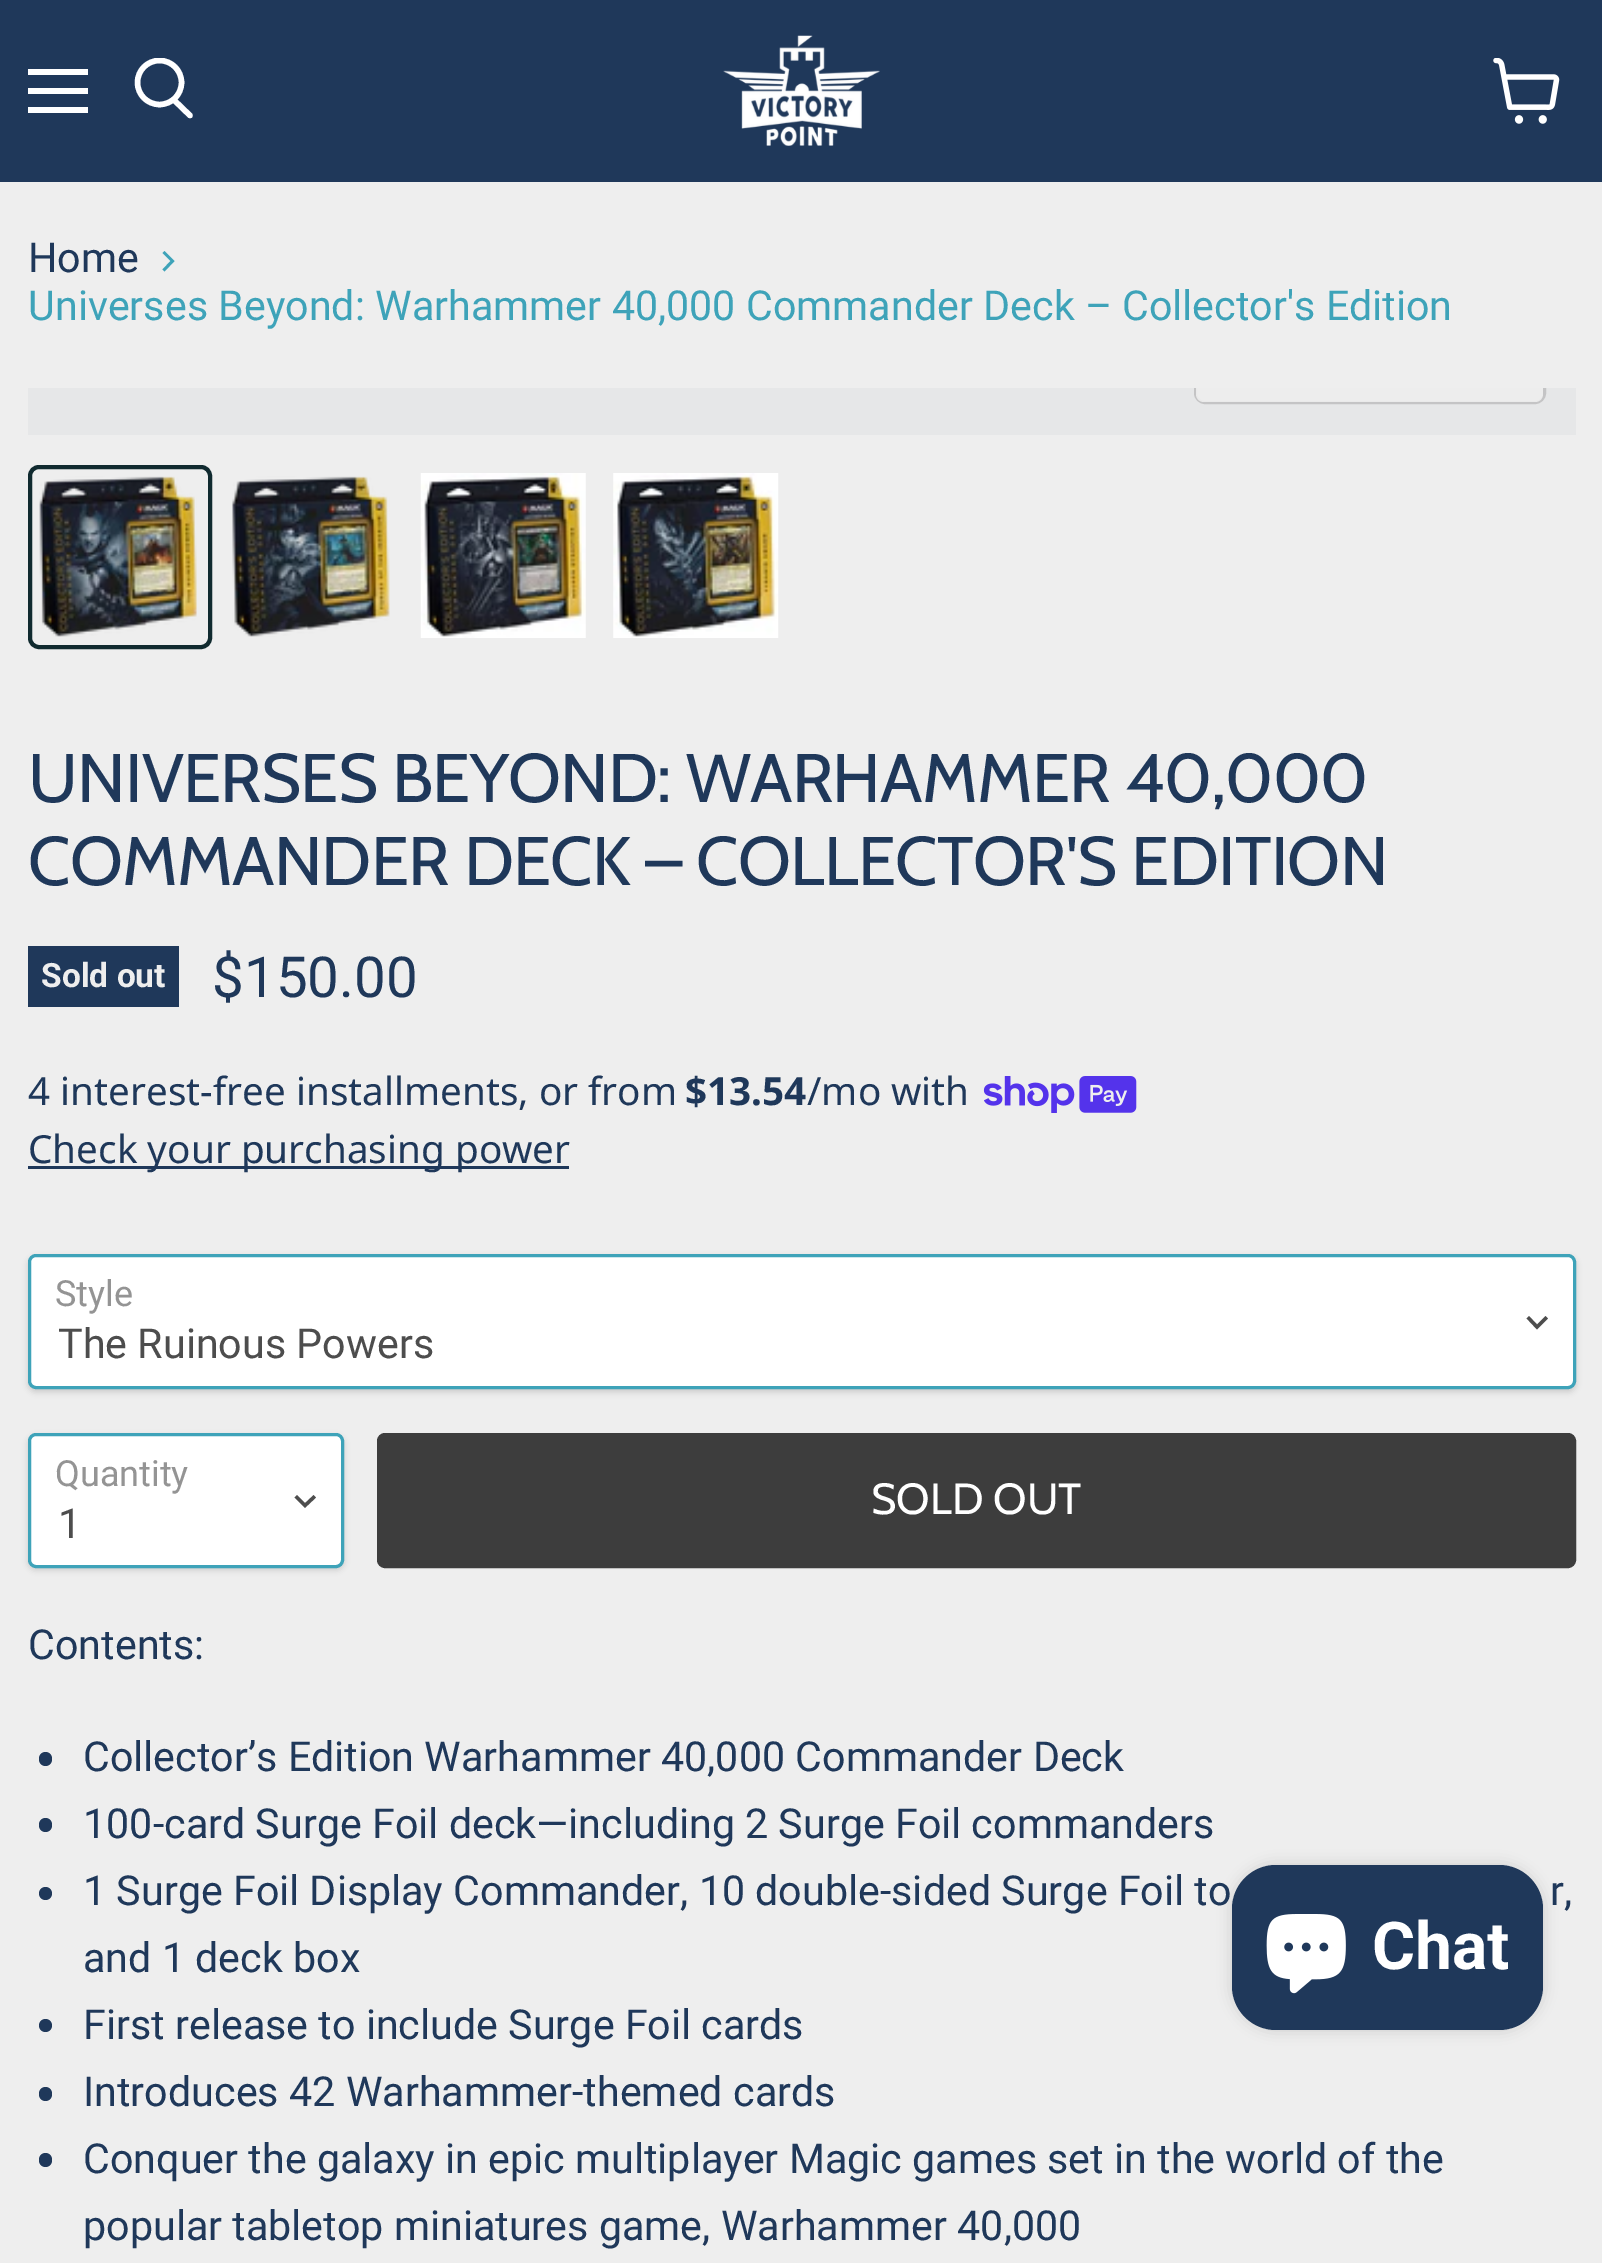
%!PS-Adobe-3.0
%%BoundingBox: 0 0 1602 2263
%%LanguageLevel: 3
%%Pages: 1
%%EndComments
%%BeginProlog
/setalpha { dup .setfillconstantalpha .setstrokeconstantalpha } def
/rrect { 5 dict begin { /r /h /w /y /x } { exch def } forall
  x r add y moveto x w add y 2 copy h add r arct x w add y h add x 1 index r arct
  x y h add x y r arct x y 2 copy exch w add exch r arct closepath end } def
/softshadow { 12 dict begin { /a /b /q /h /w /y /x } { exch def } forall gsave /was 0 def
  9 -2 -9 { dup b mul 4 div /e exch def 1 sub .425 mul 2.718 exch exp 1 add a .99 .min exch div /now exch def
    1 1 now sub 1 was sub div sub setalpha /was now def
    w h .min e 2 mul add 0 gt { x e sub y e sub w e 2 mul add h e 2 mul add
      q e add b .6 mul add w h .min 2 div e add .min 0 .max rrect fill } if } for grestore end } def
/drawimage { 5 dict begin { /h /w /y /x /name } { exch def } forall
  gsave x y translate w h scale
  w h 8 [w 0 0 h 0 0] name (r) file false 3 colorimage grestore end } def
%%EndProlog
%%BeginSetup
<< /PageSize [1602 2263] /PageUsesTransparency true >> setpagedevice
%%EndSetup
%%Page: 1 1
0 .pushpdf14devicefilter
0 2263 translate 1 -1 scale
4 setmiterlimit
0.933 setgray
0 0 1602 2263 rectfill
0.122 0.22 0.353 setrgbcolor
0 0 1602 182 rectfill
1 setgray
28 69 60 6 rectfill
28 88 60 6 rectfill
28 107 60 6 rectfill
5.5 setlinewidth
1 setlinecap
newpath 190 115.5 moveto 174.5 100.5 lineto stroke
gsave
132 58 63 66 rectclip
0 setlinecap
newpath 159.5 82.5 22 0 360 arc closepath stroke
grestore
(images/1.raw) 723 35 157 111 drawimage
(images/2.raw) 1493 58 67 66 drawimage
0.243 0.639 0.725 setrgbcolor
newpath 162.5 269.5 moveto 164.5 271.5 lineto 174.5 261 lineto 164.5 251 lineto 162.5 253 lineto 170.5 261 lineto closepath eofill
0.902 0.906 0.91 setrgbcolor
28 388 1548 47 rectfill
0.063 0.165 0.184 setrgbcolor
4 setlinewidth
0 setlinecap
30 467 180 180 9 rrect stroke
(images/3.raw) 39 476 158 161 drawimage
(images/4.raw) 232 476 158 161 drawimage
(images/5.raw) 420 473 166 165 drawimage
(images/6.raw) 613 473 166 165 drawimage
0.122 0.22 0.353 setrgbcolor
28 946 151 61 rectfill
(images/7.raw) 983 1076 154 37 drawimage
28 1166 541 3 rectfill
0 setgray
28 1257 1548 135 8 3 0.15 softshadow
1 setgray
29.5 1255.5 1545 132 6.5 rrect gsave fill grestore
0.243 0.639 0.725 setrgbcolor
3 setlinewidth
stroke
0.302 setgray
3.4 setlinewidth
2 setlinecap
newpath 1537 1327 moveto 1545.5 1318.5 lineto 1537 1327 moveto 1529 1318.5 lineto stroke
0 setgray
28 1436 316 134 8 3 0.15 softshadow
1 setgray
29.5 1434.5 313 132 6.5 rrect gsave fill grestore
0.243 0.639 0.725 setrgbcolor
3 setlinewidth
0 setlinecap
stroke
0.302 setgray
3.4 setlinewidth
2 setlinecap
newpath 305 1505.5 moveto 313.5 1497.5 lineto 305 1505.5 moveto 297 1497.5 lineto stroke
0.239 setgray
378.5 1434.5 1196 132 6.5 rrect gsave fill grestore
3 setlinewidth
0 setlinecap
stroke
0.122 0.22 0.353 setrgbcolor
39 1752 13 14 6.5 rrect fill
39 1818 13 14 6.5 rrect fill
newpath 45.5 1893.5 6.5 0 360 arc closepath fill
newpath 45.5 2025.5 6.5 0 360 arc closepath fill
39 2087 13 14 6.5 rrect fill
39 2153 13 14 6.5 rrect fill
0 setgray
1232 1865 311 165 44 7 0.15 softshadow
0.122 0.22 0.353 setrgbcolor
1232 1865 311 165 44 rrect fill
(images/8.raw) 1266 1914 80 80 drawimage
/Roboto-Regular [41.25 0 0 -41.25 0 0] selectfont
28 272 moveto (Home) show
0.243 0.639 0.725 setrgbcolor
28 320 moveto (Universes Beyond: Warhammer 40,000 Commander Deck – Collector's Edition) show
gsave
28 388 1548 47 rectclip
0.769 0.769 0.773 setrgbcolor
1195.5 326.5 349 76 9.5 rrect stroke
grestore
0.9 setalpha
0.933 setgray
newpath 1196 388 moveto 1543 388 lineto 1543 394 lineto 1543 398.5 1539.5 402 1535 402 curveto 1204 402 lineto 1199.5 402 1196 398.5 1196 394 curveto closepath fill
/Cabin-Regular [68.75 0 0 -68.75 0 0] selectfont
1 setalpha
0.122 0.22 0.353 setrgbcolor
28 802 moveto -0.7 0 (UNIVERSES BEYOND: WARHAMMER 40,000) ashow
28 885 moveto -0.7 0 (COMMANDER DECK – COLLECTOR'S EDITION) ashow
/Roboto-Bold [33.5 0 0 -33.5 0 0] selectfont
0.933 setgray
41 987 moveto (Sold out) show
/Roboto-Regular [56.5 0 0 -56.5 0 0] selectfont
0.122 0.22 0.353 setrgbcolor
212 997 moveto ($150.00) show
/NotoSans-Regular [38.7 0 0 -38.7 0 0] selectfont
28 1105 moveto (4 interest-free installments, or from) show
/NotoSans-Bold [38.7 0 0 -38.7 0 0] selectfont
685 1105 moveto ($13.54) show
/NotoSans-Regular [38.7 0 0 -38.7 0 0] selectfont
807 1105 moveto (/mo with) show
28 1163 moveto (Check your purchasing power) show
/Roboto-Regular [36 0 0 -36 0 0] selectfont
0.58 setgray
55 1306 moveto (Style) show
/Roboto-Regular [41.25 0 0 -41.25 0 0] selectfont
0.302 setgray
58 1358 moveto (The Ruinous Powers) show
/Roboto-Regular [36 0 0 -36 0 0] selectfont
0.58 setgray
55 1486 moveto (Quantity) show
/Roboto-Regular [41.25 0 0 -41.25 0 0] selectfont
0.302 setgray
58 1538 moveto (1) show
/Cabin-Regular [43.5 0 0 -43.5 0 0] selectfont
1 setgray
871 1514 moveto (SOLD OUT) show
/Roboto-Regular [41.25 0 0 -41.25 0 0] selectfont
0.122 0.22 0.353 setrgbcolor
28 1659 moveto (Contents:) show
83 1771 moveto (Collector’s Edition Warhammer 40,000 Commander Deck) show
83 1838 moveto (100-card Surge Foil deck—including 2 Surge Foil commanders) show
83 1905 moveto (1 Surge Foil Display Commander, 10 double-sided Surge Foil to) show
1550 1905 moveto (r,) show
83 1972 moveto (and 1 deck box) show
83 2039 moveto (First release to include Surge Foil cards) show
83 2106 moveto (Introduces 42 Warhammer-themed cards) show
83 2173 moveto (Conquer the galaxy in epic multiplayer Magic games set in the world of the) show
83 2240 moveto (popular tabletop miniatures game, Warhammer 40,000) show
/Roboto-Bold [66 0 0 -66 0 0] selectfont
1 setgray
1372 1969 moveto (Chat) show
.poppdf14devicefilter showpage
%%EOF
